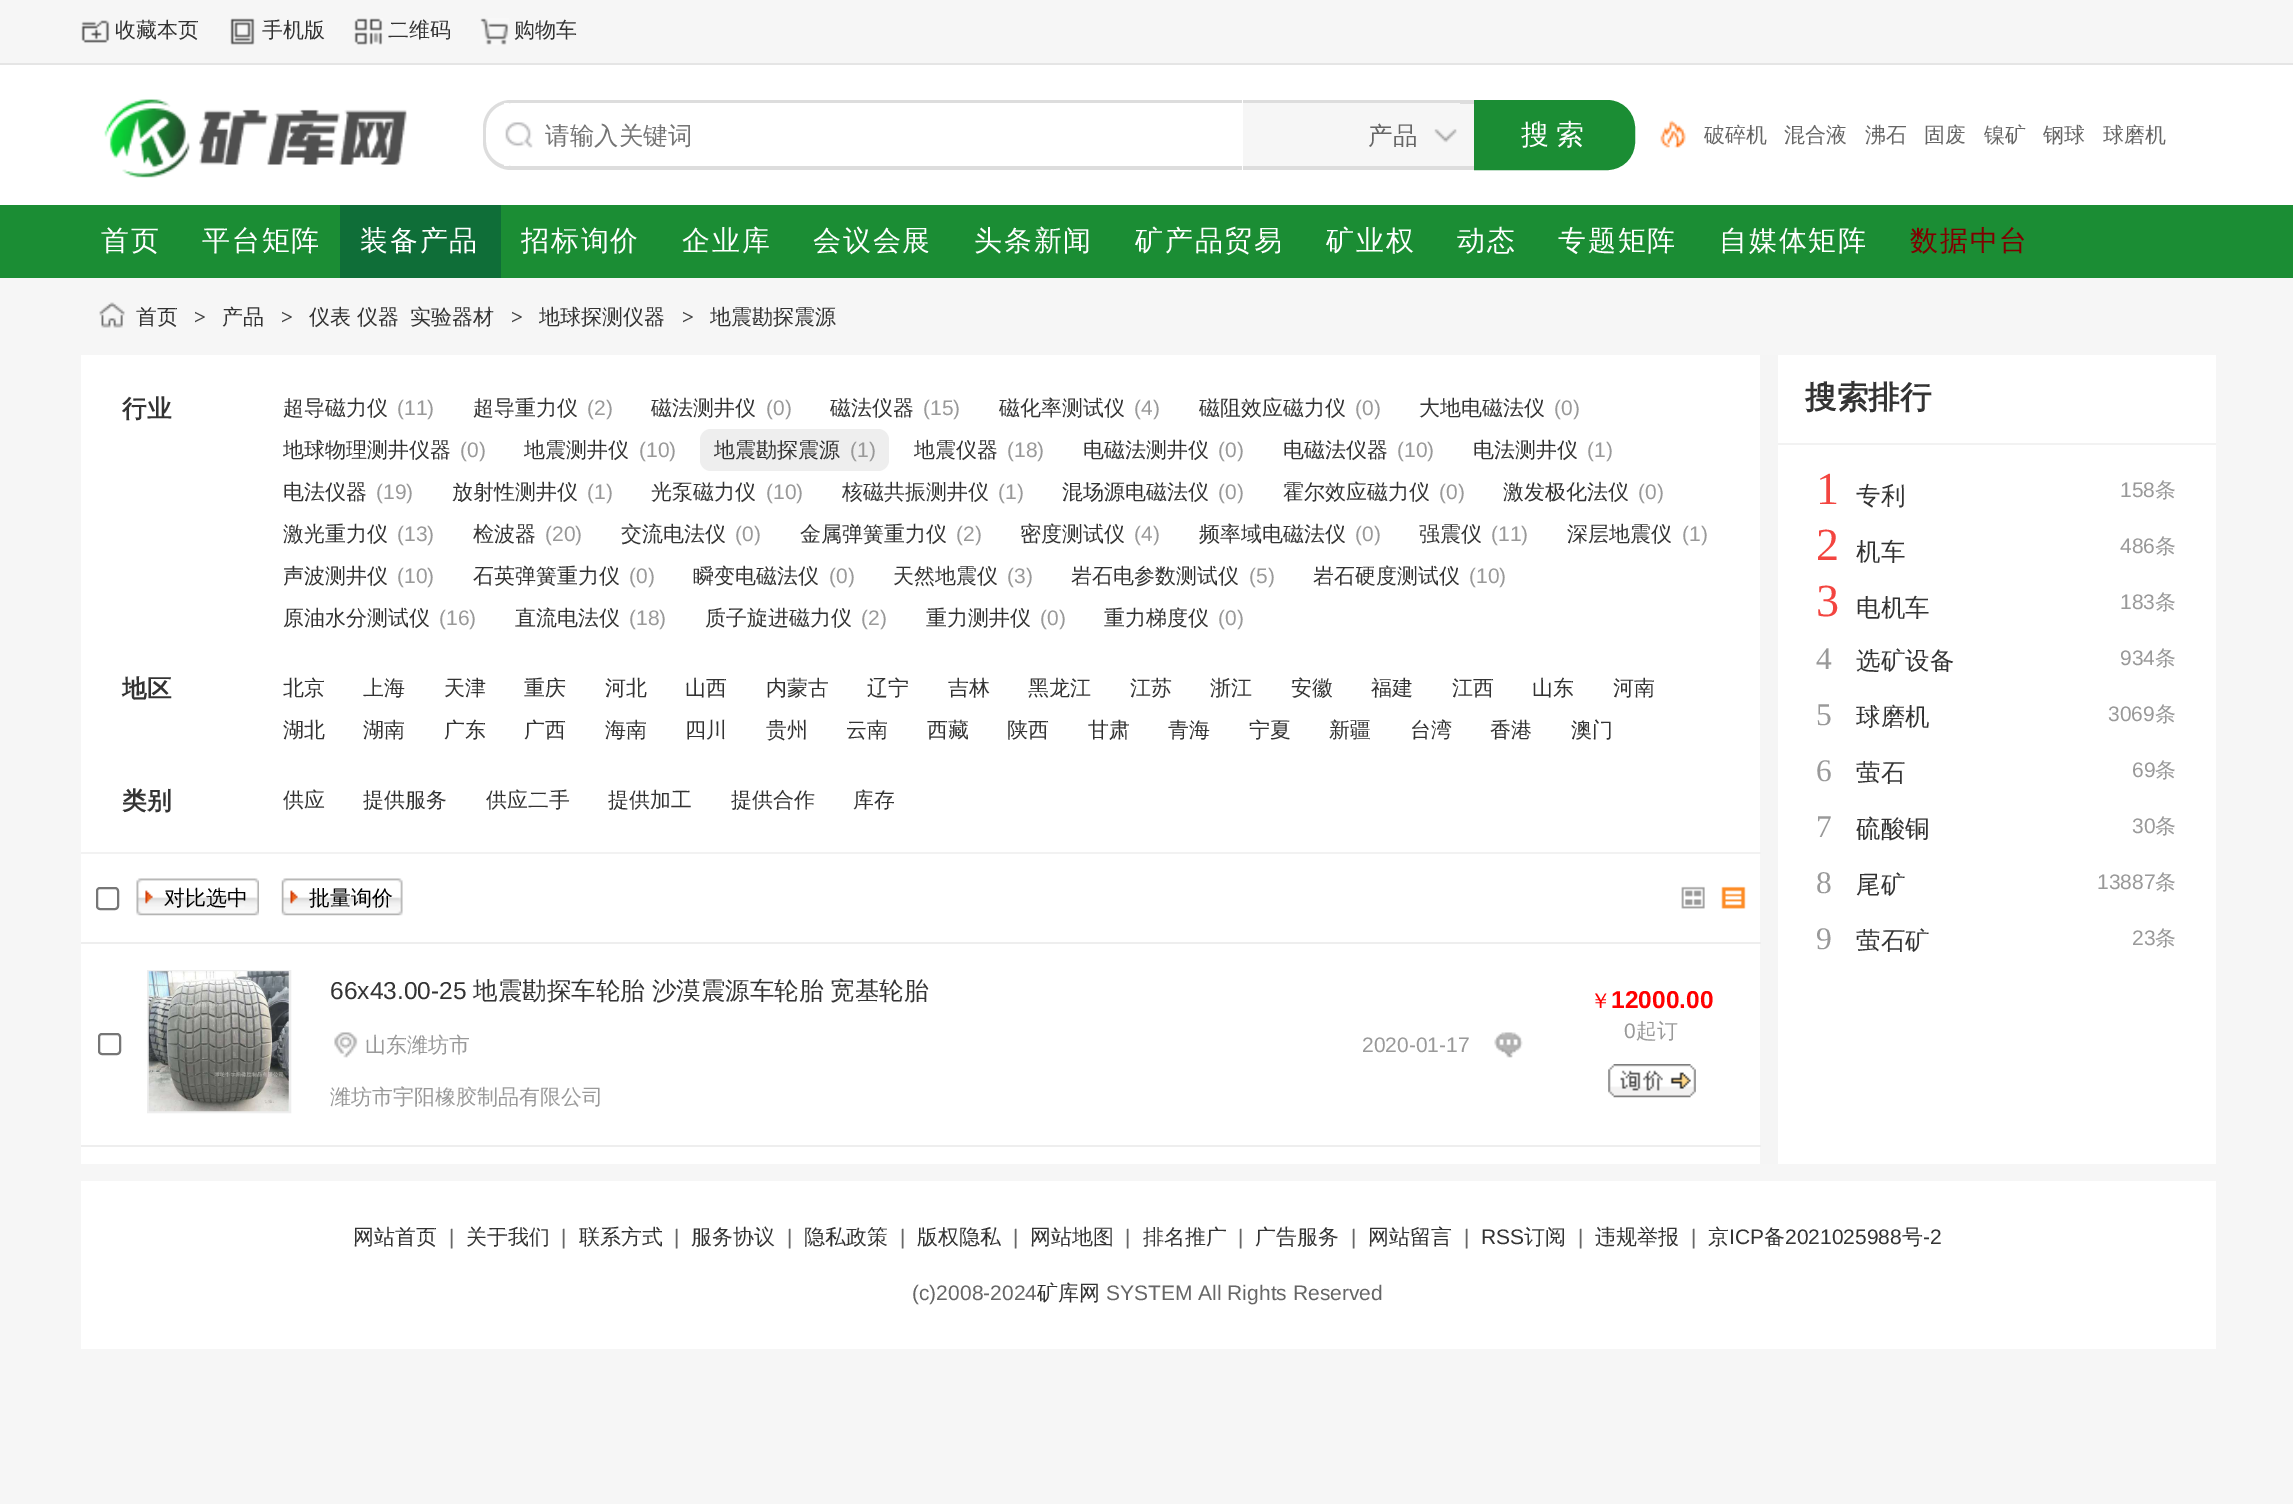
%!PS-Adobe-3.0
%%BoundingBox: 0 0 2293 1504
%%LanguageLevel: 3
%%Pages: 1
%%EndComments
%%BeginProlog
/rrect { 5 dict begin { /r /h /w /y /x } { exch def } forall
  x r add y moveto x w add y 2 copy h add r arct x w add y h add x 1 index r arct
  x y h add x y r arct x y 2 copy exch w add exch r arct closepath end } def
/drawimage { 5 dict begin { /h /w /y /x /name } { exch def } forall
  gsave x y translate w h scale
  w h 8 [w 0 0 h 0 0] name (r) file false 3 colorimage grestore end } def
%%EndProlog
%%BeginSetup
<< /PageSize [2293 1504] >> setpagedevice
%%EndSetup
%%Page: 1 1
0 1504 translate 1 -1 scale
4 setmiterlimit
0.965 setgray
0 0 2293 1504 rectfill
0.898 setgray
0 63 2293 2 rectfill
(images/1.raw) 81 20 29 23 drawimage
(images/2.raw) 230 18 25 27 drawimage
(images/3.raw) 354 18 29 27 drawimage
(images/4.raw) 480 18 29 27 drawimage
1 setgray
0 65 2293 140 rectfill
(images/5.raw) 104 99 303 79 drawimage
0.867 setgray
newpath 511 100 moveto 1242 100 lineto 1242 170 lineto 511 170 lineto 496 170 483 157 483 142 curveto 483 128 lineto 483 112 496 100 511 100 curveto closepath 511 103 moveto 1242 103 lineto 1242 166 lineto 511 166 lineto 497 166 486 155 486 142 curveto 486 128 lineto 486 114 497 103 511 103 curveto closepath eofill
1 setgray
504 103 5 63 rectfill
(images/6.raw) 505 122 28 26 drawimage
0.965 setgray
1460 104 14 62 rectfill
0.867 setgray
1243 100 231 4 rectfill
1243 166 231 4 rectfill
0.965 setgray
1243 103 217 63 rectfill
(images/7.raw) 1434 129 23 14 drawimage
0.106 0.553 0.204 setrgbcolor
newpath 1476 102 moveto 1607 102 lineto 1621.5 102 1633 113.5 1633 128 curveto 1633 142 lineto 1633 156.5 1621.5 168 1607 168 curveto 1476 168 lineto closepath gsave fill grestore
4 setlinewidth
stroke
(images/8.raw) 1660 120 26 28 drawimage
0 205 2293 73 rectfill
0.059 0.431 0.22 setrgbcolor
340 205 161 73 rectfill
(images/9.raw) 99 302 26 26 drawimage
1 setgray
81 355 2135 809 rectfill
0.961 setgray
1760 355 18 809 rectfill
0.949 setgray
81 852 1680 2 rectfill
0.933 setgray
700 429 189 42 11 rrect fill
81 942 1680 2 rectfill
0.463 setgray
2 setlinewidth
97 888 21 21 3 rrect stroke
(images/10.raw) 136 878 123 38 drawimage
(images/11.raw) 281 878 122 38 drawimage
(images/12.raw) 1681 886 24 23 drawimage
(images/13.raw) 1721 886 25 23 drawimage
0.933 setgray
81 1145 1680 2 rectfill
148 971 142 141 rectstroke
(images/14.raw) 148 971 141 141 drawimage
(images/15.raw) 334 1032 24 26 drawimage
(images/16.raw) 1608 1064 88 34 drawimage
0.463 setgray
99 1034 21 20 3 rrect stroke
(images/17.raw) 1494 1032 29 26 drawimage
0.949 setgray
1778 443 438 2 rectfill
1 setgray
81 1181 2135 168 rectfill
/WenQuanYiZenHei-Medium [21 0 0 -21 0 0] selectfont
0.2 setgray
115 37 moveto (收藏本页) show
262 37 moveto (手机版) show
388 37 moveto (二维码) show
514 37 moveto (购物车) show
/WenQuanYiZenHei-Medium [24.5 0 0 -24.5 0 0] selectfont
0.459 setgray
545 144 moveto (请输入关键词) show
0.4 setgray
1368 144 moveto (产品) show
/WenQuanYiZenHei-Medium [28 0 0 -28 0 0] selectfont
1 setgray
1521 144 moveto -1 0 32 (搜 索) widthshow
/WenQuanYiZenHei-Medium [21 0 0 -21 0 0] selectfont
0.4 setgray
1704 142 moveto (破碎机) show
1784 142 moveto (混合液) show
1865 142 moveto (沸石) show
1924 142 moveto (固废) show
1984 142 moveto (镍矿) show
2043 142 moveto (钢球) show
2103 142 moveto (球磨机) show
/WenQuanYiZenHei-Medium [28 0 0 -28 0 0] selectfont
1 setgray
101 250 moveto 1.75 0 (首页) ashow
202 250 moveto 1.75 0 (平台矩阵) ashow
360 250 moveto 1.75 0 (装备产品) ashow
521 250 moveto 1.75 0 (招标询价) ashow
682 250 moveto 1.75 0 (企业库) ashow
813 250 moveto 1.75 0 (会议会展) ashow
974 250 moveto 1.75 0 (头条新闻) ashow
1135 250 moveto 1.75 0 (矿产品贸易) ashow
1326 250 moveto 1.75 0 (矿业权) ashow
1457 250 moveto 1.75 0 (动态) ashow
1558 250 moveto 1.75 0 (专题矩阵) ashow
1719 250 moveto 1.75 0 (自媒体矩阵) ashow
0.502 0 0 setrgbcolor
1910 250 moveto 1.75 0 (数据中台) ashow
/WenQuanYiZenHei-Medium [21 0 0 -21 0 0] selectfont
0.2 setgray
136 324 moveto (首页) show
/LiberationSerif-Bold [21 0 0 -21 0 0] selectfont
0.267 setgray
194 324 moveto (>) show
/WenQuanYiZenHei-Medium [21 0 0 -21 0 0] selectfont
0.2 setgray
222 324 moveto (产品) show
/LiberationSerif-Bold [21 0 0 -21 0 0] selectfont
0.267 setgray
281 324 moveto (>) show
/WenQuanYiZenHei-Medium [21 0 0 -21 0 0] selectfont
0.2 setgray
309 324 moveto (仪表 仪器) show
410 324 moveto (实验器材) show
/LiberationSerif-Bold [21 0 0 -21 0 0] selectfont
0.267 setgray
511 324 moveto (>) show
/WenQuanYiZenHei-Medium [21 0 0 -21 0 0] selectfont
0.2 setgray
539 324 moveto (地球探测仪器) show
/LiberationSerif-Bold [21 0 0 -21 0 0] selectfont
0.267 setgray
682 324 moveto (>) show
/WenQuanYiZenHei-Medium [21 0 0 -21 0 0] selectfont
0.2 setgray
710 324 moveto (地震勘探震源) show
/WenQuanYiZenHei-Bold [24.5 0 0 -24.5 0 0] selectfont
122 417 moveto (行业) show
/WenQuanYiZenHei-Medium [21 0 0 -21 0 0] selectfont
283 415 moveto (超导磁力仪) show
/LiberationSans-Regular [21 0 0 -21 0 0] selectfont
0.6 setgray
397 415 moveto (\(11\)) show
/WenQuanYiZenHei-Medium [21 0 0 -21 0 0] selectfont
0.2 setgray
473 415 moveto (超导重力仪) show
/LiberationSans-Regular [21 0 0 -21 0 0] selectfont
0.6 setgray
587 415 moveto (\(2\)) show
/WenQuanYiZenHei-Medium [21 0 0 -21 0 0] selectfont
0.2 setgray
651 415 moveto (磁法测井仪) show
/LiberationSans-Regular [21 0 0 -21 0 0] selectfont
0.6 setgray
766 415 moveto (\(0\)) show
/WenQuanYiZenHei-Medium [21 0 0 -21 0 0] selectfont
0.2 setgray
830 415 moveto (磁法仪器) show
/LiberationSans-Regular [21 0 0 -21 0 0] selectfont
0.6 setgray
923 415 moveto (\(15\)) show
/WenQuanYiZenHei-Medium [21 0 0 -21 0 0] selectfont
0.2 setgray
999 415 moveto (磁化率测试仪) show
/LiberationSans-Regular [21 0 0 -21 0 0] selectfont
0.6 setgray
1134 415 moveto (\(4\)) show
/WenQuanYiZenHei-Medium [21 0 0 -21 0 0] selectfont
0.2 setgray
1199 415 moveto (磁阻效应磁力仪) show
/LiberationSans-Regular [21 0 0 -21 0 0] selectfont
0.6 setgray
1355 415 moveto (\(0\)) show
/WenQuanYiZenHei-Medium [21 0 0 -21 0 0] selectfont
0.2 setgray
1419 415 moveto (大地电磁法仪) show
/LiberationSans-Regular [21 0 0 -21 0 0] selectfont
0.6 setgray
1554 415 moveto (\(0\)) show
/WenQuanYiZenHei-Medium [21 0 0 -21 0 0] selectfont
0.2 setgray
283 457 moveto (地球物理测井仪器) show
/LiberationSans-Regular [21 0 0 -21 0 0] selectfont
0.6 setgray
460 457 moveto (\(0\)) show
/WenQuanYiZenHei-Medium [21 0 0 -21 0 0] selectfont
0.2 setgray
524 457 moveto (地震测井仪) show
/LiberationSans-Regular [21 0 0 -21 0 0] selectfont
0.6 setgray
639 457 moveto (\(10\)) show
/WenQuanYiZenHei-Medium [21 0 0 -21 0 0] selectfont
0.2 setgray
714 457 moveto (地震勘探震源) show
/LiberationSans-Regular [21 0 0 -21 0 0] selectfont
0.6 setgray
850 457 moveto (\(1\)) show
/WenQuanYiZenHei-Medium [21 0 0 -21 0 0] selectfont
0.2 setgray
914 457 moveto (地震仪器) show
/LiberationSans-Regular [21 0 0 -21 0 0] selectfont
0.6 setgray
1007 457 moveto (\(18\)) show
/WenQuanYiZenHei-Medium [21 0 0 -21 0 0] selectfont
0.2 setgray
1083 457 moveto (电磁法测井仪) show
/LiberationSans-Regular [21 0 0 -21 0 0] selectfont
0.6 setgray
1218 457 moveto (\(0\)) show
/WenQuanYiZenHei-Medium [21 0 0 -21 0 0] selectfont
0.2 setgray
1283 457 moveto (电磁法仪器) show
/LiberationSans-Regular [21 0 0 -21 0 0] selectfont
0.6 setgray
1397 457 moveto (\(10\)) show
/WenQuanYiZenHei-Medium [21 0 0 -21 0 0] selectfont
0.2 setgray
1473 457 moveto (电法测井仪) show
/LiberationSans-Regular [21 0 0 -21 0 0] selectfont
0.6 setgray
1587 457 moveto (\(1\)) show
/WenQuanYiZenHei-Medium [21 0 0 -21 0 0] selectfont
0.2 setgray
283 499 moveto (电法仪器) show
/LiberationSans-Regular [21 0 0 -21 0 0] selectfont
0.6 setgray
376 499 moveto (\(19\)) show
/WenQuanYiZenHei-Medium [21 0 0 -21 0 0] selectfont
0.2 setgray
452 499 moveto (放射性测井仪) show
/LiberationSans-Regular [21 0 0 -21 0 0] selectfont
0.6 setgray
587 499 moveto (\(1\)) show
/WenQuanYiZenHei-Medium [21 0 0 -21 0 0] selectfont
0.2 setgray
651 499 moveto (光泵磁力仪) show
/LiberationSans-Regular [21 0 0 -21 0 0] selectfont
0.6 setgray
766 499 moveto (\(10\)) show
/WenQuanYiZenHei-Medium [21 0 0 -21 0 0] selectfont
0.2 setgray
842 499 moveto (核磁共振测井仪) show
/LiberationSans-Regular [21 0 0 -21 0 0] selectfont
0.6 setgray
998 499 moveto (\(1\)) show
/WenQuanYiZenHei-Medium [21 0 0 -21 0 0] selectfont
0.2 setgray
1062 499 moveto (混场源电磁法仪) show
/LiberationSans-Regular [21 0 0 -21 0 0] selectfont
0.6 setgray
1218 499 moveto (\(0\)) show
/WenQuanYiZenHei-Medium [21 0 0 -21 0 0] selectfont
0.2 setgray
1283 499 moveto (霍尔效应磁力仪) show
/LiberationSans-Regular [21 0 0 -21 0 0] selectfont
0.6 setgray
1439 499 moveto (\(0\)) show
/WenQuanYiZenHei-Medium [21 0 0 -21 0 0] selectfont
0.2 setgray
1503 499 moveto (激发极化法仪) show
/LiberationSans-Regular [21 0 0 -21 0 0] selectfont
0.6 setgray
1638 499 moveto (\(0\)) show
/WenQuanYiZenHei-Medium [21 0 0 -21 0 0] selectfont
0.2 setgray
283 541 moveto (激光重力仪) show
/LiberationSans-Regular [21 0 0 -21 0 0] selectfont
0.6 setgray
397 541 moveto (\(13\)) show
/WenQuanYiZenHei-Medium [21 0 0 -21 0 0] selectfont
0.2 setgray
473 541 moveto (检波器) show
/LiberationSans-Regular [21 0 0 -21 0 0] selectfont
0.6 setgray
545 541 moveto (\(20\)) show
/WenQuanYiZenHei-Medium [21 0 0 -21 0 0] selectfont
0.2 setgray
621 541 moveto (交流电法仪) show
/LiberationSans-Regular [21 0 0 -21 0 0] selectfont
0.6 setgray
735 541 moveto (\(0\)) show
/WenQuanYiZenHei-Medium [21 0 0 -21 0 0] selectfont
0.2 setgray
800 541 moveto (金属弹簧重力仪) show
/LiberationSans-Regular [21 0 0 -21 0 0] selectfont
0.6 setgray
956 541 moveto (\(2\)) show
/WenQuanYiZenHei-Medium [21 0 0 -21 0 0] selectfont
0.2 setgray
1020 541 moveto (密度测试仪) show
/LiberationSans-Regular [21 0 0 -21 0 0] selectfont
0.6 setgray
1134 541 moveto (\(4\)) show
/WenQuanYiZenHei-Medium [21 0 0 -21 0 0] selectfont
0.2 setgray
1199 541 moveto (频率域电磁法仪) show
/LiberationSans-Regular [21 0 0 -21 0 0] selectfont
0.6 setgray
1355 541 moveto (\(0\)) show
/WenQuanYiZenHei-Medium [21 0 0 -21 0 0] selectfont
0.2 setgray
1419 541 moveto (强震仪) show
/LiberationSans-Regular [21 0 0 -21 0 0] selectfont
0.6 setgray
1491 541 moveto (\(11\)) show
/WenQuanYiZenHei-Medium [21 0 0 -21 0 0] selectfont
0.2 setgray
1567 541 moveto (深层地震仪) show
/LiberationSans-Regular [21 0 0 -21 0 0] selectfont
0.6 setgray
1682 541 moveto (\(1\)) show
/WenQuanYiZenHei-Medium [21 0 0 -21 0 0] selectfont
0.2 setgray
283 583 moveto (声波测井仪) show
/LiberationSans-Regular [21 0 0 -21 0 0] selectfont
0.6 setgray
397 583 moveto (\(10\)) show
/WenQuanYiZenHei-Medium [21 0 0 -21 0 0] selectfont
0.2 setgray
473 583 moveto (石英弹簧重力仪) show
/LiberationSans-Regular [21 0 0 -21 0 0] selectfont
0.6 setgray
629 583 moveto (\(0\)) show
/WenQuanYiZenHei-Medium [21 0 0 -21 0 0] selectfont
0.2 setgray
693 583 moveto (瞬变电磁法仪) show
/LiberationSans-Regular [21 0 0 -21 0 0] selectfont
0.6 setgray
829 583 moveto (\(0\)) show
/WenQuanYiZenHei-Medium [21 0 0 -21 0 0] selectfont
0.2 setgray
893 583 moveto (天然地震仪) show
/LiberationSans-Regular [21 0 0 -21 0 0] selectfont
0.6 setgray
1007 583 moveto (\(3\)) show
/WenQuanYiZenHei-Medium [21 0 0 -21 0 0] selectfont
0.2 setgray
1071 583 moveto (岩石电参数测试仪) show
/LiberationSans-Regular [21 0 0 -21 0 0] selectfont
0.6 setgray
1249 583 moveto (\(5\)) show
/WenQuanYiZenHei-Medium [21 0 0 -21 0 0] selectfont
0.2 setgray
1313 583 moveto (岩石硬度测试仪) show
/LiberationSans-Regular [21 0 0 -21 0 0] selectfont
0.6 setgray
1469 583 moveto (\(10\)) show
/WenQuanYiZenHei-Medium [21 0 0 -21 0 0] selectfont
0.2 setgray
283 625 moveto (原油水分测试仪) show
/LiberationSans-Regular [21 0 0 -21 0 0] selectfont
0.6 setgray
439 625 moveto (\(16\)) show
/WenQuanYiZenHei-Medium [21 0 0 -21 0 0] selectfont
0.2 setgray
515 625 moveto (直流电法仪) show
/LiberationSans-Regular [21 0 0 -21 0 0] selectfont
0.6 setgray
629 625 moveto (\(18\)) show
/WenQuanYiZenHei-Medium [21 0 0 -21 0 0] selectfont
0.2 setgray
705 625 moveto (质子旋进磁力仪) show
/LiberationSans-Regular [21 0 0 -21 0 0] selectfont
0.6 setgray
861 625 moveto (\(2\)) show
/WenQuanYiZenHei-Medium [21 0 0 -21 0 0] selectfont
0.2 setgray
926 625 moveto (重力测井仪) show
/LiberationSans-Regular [21 0 0 -21 0 0] selectfont
0.6 setgray
1040 625 moveto (\(0\)) show
/WenQuanYiZenHei-Medium [21 0 0 -21 0 0] selectfont
0.2 setgray
1104 625 moveto (重力梯度仪) show
/LiberationSans-Regular [21 0 0 -21 0 0] selectfont
0.6 setgray
1218 625 moveto (\(0\)) show
/WenQuanYiZenHei-Bold [24.5 0 0 -24.5 0 0] selectfont
0.2 setgray
122 697 moveto (地区) show
/WenQuanYiZenHei-Medium [21 0 0 -21 0 0] selectfont
283 695 moveto (北京) show
363 695 moveto (上海) show
444 695 moveto (天津) show
524 695 moveto (重庆) show
605 695 moveto (河北) show
685 695 moveto (山西) show
766 695 moveto (内蒙古) show
867 695 moveto (辽宁) show
948 695 moveto (吉林) show
1028 695 moveto (黑龙江) show
1130 695 moveto (江苏) show
1210 695 moveto (浙江) show
1291 695 moveto (安徽) show
1371 695 moveto (福建) show
1452 695 moveto (江西) show
1532 695 moveto (山东) show
1613 695 moveto (河南) show
283 737 moveto (湖北) show
363 737 moveto (湖南) show
444 737 moveto (广东) show
524 737 moveto (广西) show
605 737 moveto (海南) show
685 737 moveto (四川) show
766 737 moveto (贵州) show
846 737 moveto (云南) show
927 737 moveto (西藏) show
1007 737 moveto (陕西) show
1088 737 moveto (甘肃) show
1168 737 moveto (青海) show
1249 737 moveto (宁夏) show
1329 737 moveto (新疆) show
1410 737 moveto (台湾) show
1490 737 moveto (香港) show
1571 737 moveto (澳门) show
/WenQuanYiZenHei-Bold [24.5 0 0 -24.5 0 0] selectfont
122 809 moveto (类别) show
/WenQuanYiZenHei-Medium [21 0 0 -21 0 0] selectfont
283 807 moveto (供应) show
363 807 moveto (提供服务) show
486 807 moveto (供应二手) show
608 807 moveto (提供加工) show
731 807 moveto (提供合作) show
853 807 moveto (库存) show
0 setgray
164 905 moveto (对比选中) show
309 905 moveto (批量询价) show
/LiberationSans-Regular [24.5 0 0 -24.5 0 0] selectfont
0.2 setgray
330 999 moveto (66x43.00-25) show
/WenQuanYiZenHei-Medium [24.5 0 0 -24.5 0 0] selectfont
473 999 moveto (地震勘探车轮胎 沙漠震源车轮胎) show
830 999 moveto (宽基轮胎) show
/WenQuanYiZenHei-Medium [21 0 0 -21 0 0] selectfont
0.6 setgray
365 1052 moveto (山东潍坊市) show
/LiberationSans-Regular [21 0 0 -21 0 0] selectfont
1362 1052 moveto (2020-01-17) show
/WenQuanYiZenHei-Medium [21 0 0 -21 0 0] selectfont
330 1104 moveto (潍坊市宇阳橡胶制品有限公司) show
1 0 0 setrgbcolor
1590 1008 moveto (￥) show
/LiberationSans-Bold [24.5 0 0 -24.5 0 0] selectfont
1611 1008 moveto (12000.00) show
/LiberationSans-Regular [21 0 0 -21 0 0] selectfont
0.6 setgray
1624 1038 moveto (0) show
/WenQuanYiZenHei-Medium [21 0 0 -21 0 0] selectfont
1636 1038 moveto (起订) show
/WenQuanYiZenHei-Bold [31.5 0 0 -31.5 0 0] selectfont
0.2 setgray
1805 408 moveto (搜索排行) show
/LiberationSerif-Regular [46 0 0 -46 0 0] selectfont
0.953 0.271 0.251 setrgbcolor
1816 504 moveto (1) show
/WenQuanYiZenHei-Medium [24.5 0 0 -24.5 0 0] selectfont
0.2 setgray
1856 504 moveto (专利) show
/LiberationSans-Regular [21 0 0 -21 0 0] selectfont
0.6 setgray
2120 497 moveto (158) show
/WenQuanYiZenHei-Medium [21 0 0 -21 0 0] selectfont
2155 497 moveto (条) show
/LiberationSerif-Regular [46 0 0 -46 0 0] selectfont
0.953 0.271 0.251 setrgbcolor
1816 560 moveto (2) show
/WenQuanYiZenHei-Medium [24.5 0 0 -24.5 0 0] selectfont
0.2 setgray
1856 560 moveto (机车) show
/LiberationSans-Regular [21 0 0 -21 0 0] selectfont
0.6 setgray
2120 553 moveto (486) show
/WenQuanYiZenHei-Medium [21 0 0 -21 0 0] selectfont
2155 553 moveto (条) show
/LiberationSerif-Regular [46 0 0 -46 0 0] selectfont
0.953 0.271 0.251 setrgbcolor
1816 616 moveto (3) show
/WenQuanYiZenHei-Medium [24.5 0 0 -24.5 0 0] selectfont
0.2 setgray
1856 616 moveto (电机车) show
/LiberationSans-Regular [21 0 0 -21 0 0] selectfont
0.6 setgray
2120 609 moveto (183) show
/WenQuanYiZenHei-Medium [21 0 0 -21 0 0] selectfont
2155 609 moveto (条) show
/LiberationSerif-Regular [31.5 0 0 -31.5 0 0] selectfont
1816 669 moveto (4) show
/WenQuanYiZenHei-Medium [24.5 0 0 -24.5 0 0] selectfont
0.2 setgray
1856 669 moveto (选矿设备) show
/LiberationSans-Regular [21 0 0 -21 0 0] selectfont
0.6 setgray
2120 665 moveto (934) show
/WenQuanYiZenHei-Medium [21 0 0 -21 0 0] selectfont
2155 665 moveto (条) show
/LiberationSerif-Regular [31.5 0 0 -31.5 0 0] selectfont
1816 725 moveto (5) show
/WenQuanYiZenHei-Medium [24.5 0 0 -24.5 0 0] selectfont
0.2 setgray
1856 725 moveto (球磨机) show
/LiberationSans-Regular [21 0 0 -21 0 0] selectfont
0.6 setgray
2108 721 moveto (3069) show
/WenQuanYiZenHei-Medium [21 0 0 -21 0 0] selectfont
2155 721 moveto (条) show
/LiberationSerif-Regular [31.5 0 0 -31.5 0 0] selectfont
1816 781 moveto (6) show
/WenQuanYiZenHei-Medium [24.5 0 0 -24.5 0 0] selectfont
0.2 setgray
1856 781 moveto (萤石) show
/LiberationSans-Regular [21 0 0 -21 0 0] selectfont
0.6 setgray
2132 777 moveto (69) show
/WenQuanYiZenHei-Medium [21 0 0 -21 0 0] selectfont
2155 777 moveto (条) show
/LiberationSerif-Regular [31.5 0 0 -31.5 0 0] selectfont
1816 837 moveto (7) show
/WenQuanYiZenHei-Medium [24.5 0 0 -24.5 0 0] selectfont
0.2 setgray
1856 837 moveto (硫酸铜) show
/LiberationSans-Regular [21 0 0 -21 0 0] selectfont
0.6 setgray
2132 833 moveto (30) show
/WenQuanYiZenHei-Medium [21 0 0 -21 0 0] selectfont
2155 833 moveto (条) show
/LiberationSerif-Regular [31.5 0 0 -31.5 0 0] selectfont
1816 893 moveto (8) show
/WenQuanYiZenHei-Medium [24.5 0 0 -24.5 0 0] selectfont
0.2 setgray
1856 893 moveto (尾矿) show
/LiberationSans-Regular [21 0 0 -21 0 0] selectfont
0.6 setgray
2097 889 moveto (13887) show
/WenQuanYiZenHei-Medium [21 0 0 -21 0 0] selectfont
2155 889 moveto (条) show
/LiberationSerif-Regular [31.5 0 0 -31.5 0 0] selectfont
1816 949 moveto (9) show
/WenQuanYiZenHei-Medium [24.5 0 0 -24.5 0 0] selectfont
0.2 setgray
1856 949 moveto (萤石矿) show
/LiberationSans-Regular [21 0 0 -21 0 0] selectfont
0.6 setgray
2132 945 moveto (23) show
/WenQuanYiZenHei-Medium [21 0 0 -21 0 0] selectfont
2155 945 moveto (条) show
0.2 setgray
353 1244 moveto (网站首页) show
/LiberationSans-Regular [21 0 0 -21 0 0] selectfont
0.4 setgray
449 1244 moveto (|) show
/WenQuanYiZenHei-Medium [21 0 0 -21 0 0] selectfont
0.2 setgray
466 1244 moveto (关于我们) show
/LiberationSans-Regular [21 0 0 -21 0 0] selectfont
0.4 setgray
561 1244 moveto (|) show
/WenQuanYiZenHei-Medium [21 0 0 -21 0 0] selectfont
0.2 setgray
579 1244 moveto (联系方式) show
/LiberationSans-Regular [21 0 0 -21 0 0] selectfont
0.4 setgray
674 1244 moveto (|) show
/WenQuanYiZenHei-Medium [21 0 0 -21 0 0] selectfont
0.2 setgray
691 1244 moveto (服务协议) show
/LiberationSans-Regular [21 0 0 -21 0 0] selectfont
0.4 setgray
787 1244 moveto (|) show
/WenQuanYiZenHei-Medium [21 0 0 -21 0 0] selectfont
0.2 setgray
804 1244 moveto (隐私政策) show
/LiberationSans-Regular [21 0 0 -21 0 0] selectfont
0.4 setgray
900 1244 moveto (|) show
/WenQuanYiZenHei-Medium [21 0 0 -21 0 0] selectfont
0.2 setgray
917 1244 moveto (版权隐私) show
/LiberationSans-Regular [21 0 0 -21 0 0] selectfont
0.4 setgray
1013 1244 moveto (|) show
/WenQuanYiZenHei-Medium [21 0 0 -21 0 0] selectfont
0.2 setgray
1030 1244 moveto (网站地图) show
/LiberationSans-Regular [21 0 0 -21 0 0] selectfont
0.4 setgray
1125 1244 moveto (|) show
/WenQuanYiZenHei-Medium [21 0 0 -21 0 0] selectfont
0.2 setgray
1143 1244 moveto (排名推广) show
/LiberationSans-Regular [21 0 0 -21 0 0] selectfont
0.4 setgray
1238 1244 moveto (|) show
/WenQuanYiZenHei-Medium [21 0 0 -21 0 0] selectfont
0.2 setgray
1255 1244 moveto (广告服务) show
/LiberationSans-Regular [21 0 0 -21 0 0] selectfont
0.4 setgray
1351 1244 moveto (|) show
/WenQuanYiZenHei-Medium [21 0 0 -21 0 0] selectfont
0.2 setgray
1368 1244 moveto (网站留言) show
/LiberationSans-Regular [21 0 0 -21 0 0] selectfont
0.4 setgray
1464 1244 moveto (|) show
0.2 setgray
1481 1244 moveto (RSS) show
/WenQuanYiZenHei-Medium [21 0 0 -21 0 0] selectfont
1524 1244 moveto (订阅) show
/LiberationSans-Regular [21 0 0 -21 0 0] selectfont
0.4 setgray
1578 1244 moveto (|) show
/WenQuanYiZenHei-Medium [21 0 0 -21 0 0] selectfont
0.2 setgray
1595 1244 moveto (违规举报) show
/LiberationSans-Regular [21 0 0 -21 0 0] selectfont
0.4 setgray
1691 1244 moveto (|) show
/WenQuanYiZenHei-Medium [21 0 0 -21 0 0] selectfont
0.2 setgray
1708 1244 moveto (京) show
/LiberationSans-Regular [21 0 0 -21 0 0] selectfont
1729 1244 moveto (ICP) show
/WenQuanYiZenHei-Medium [21 0 0 -21 0 0] selectfont
1764 1244 moveto (备) show
/LiberationSans-Regular [21 0 0 -21 0 0] selectfont
1785 1244 moveto (2021025988) show
/WenQuanYiZenHei-Medium [21 0 0 -21 0 0] selectfont
1902 1244 moveto (号) show
/LiberationSans-Regular [21 0 0 -21 0 0] selectfont
1923 1244 moveto (-2) show
0.4 setgray
912 1300 moveto (\(c\)2008-2024) show
/WenQuanYiZenHei-Medium [21 0 0 -21 0 0] selectfont
0.2 setgray
1037 1300 moveto (矿库网) show
/LiberationSans-Regular [21 0 0 -21 0 0] selectfont
0.4 setgray
1106 1300 moveto (SYSTEM All Rights Reserved) show
showpage
%%EOF
